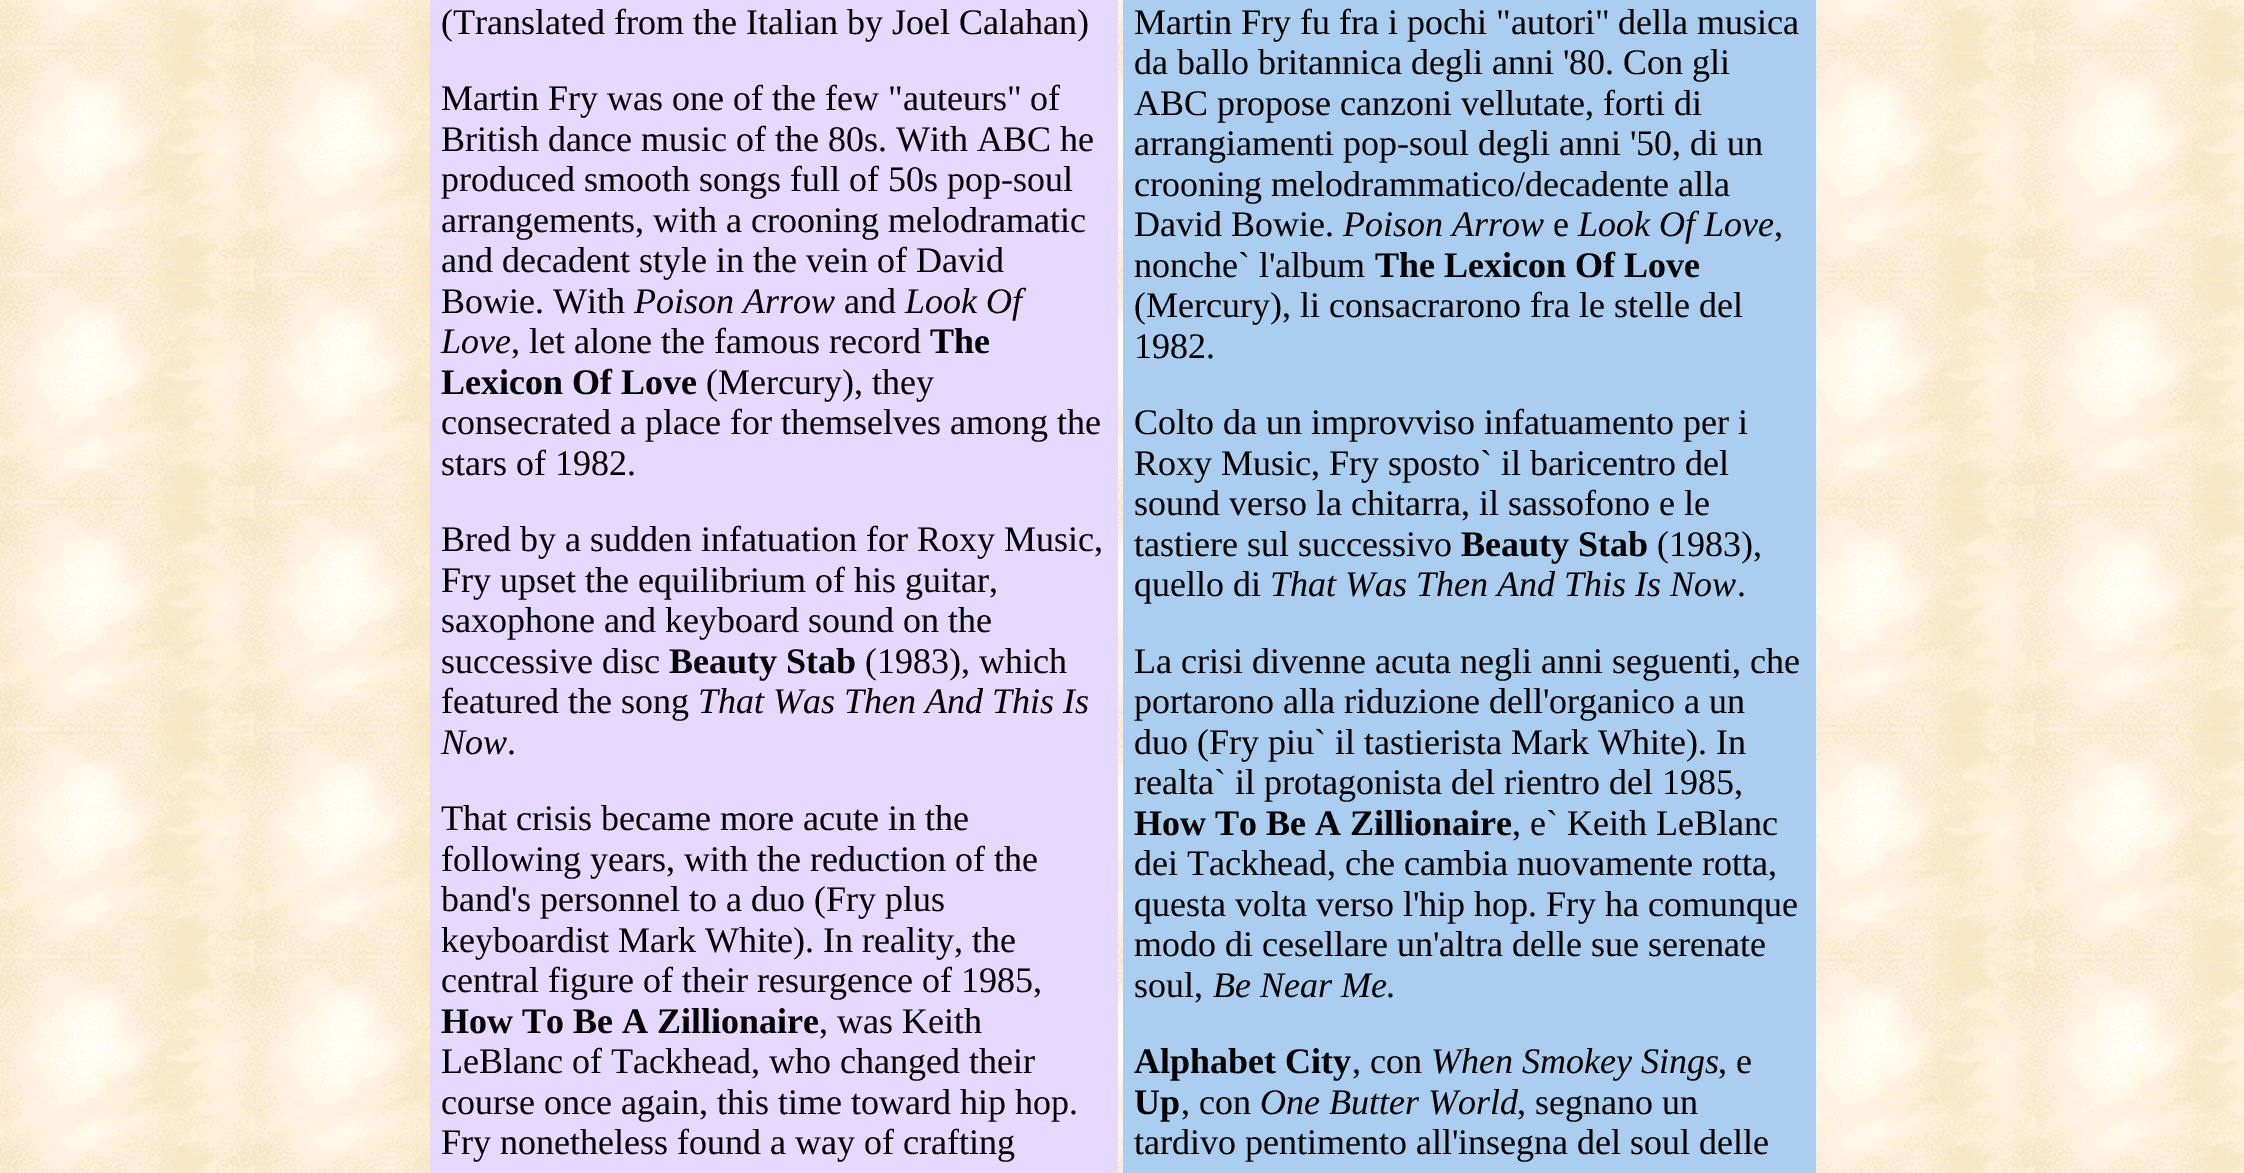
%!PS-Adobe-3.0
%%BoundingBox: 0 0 2244 1173
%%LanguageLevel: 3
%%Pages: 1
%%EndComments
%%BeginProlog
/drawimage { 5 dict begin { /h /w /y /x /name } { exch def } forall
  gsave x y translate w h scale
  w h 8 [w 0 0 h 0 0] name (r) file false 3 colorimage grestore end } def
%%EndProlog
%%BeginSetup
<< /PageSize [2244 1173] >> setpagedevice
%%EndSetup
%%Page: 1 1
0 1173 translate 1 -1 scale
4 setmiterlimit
1 setgray
0 0 2244 1173 rectfill
(images/1.raw) 0 0 2244 1173 drawimage
0.902 0.851 1 setrgbcolor
430 0 688 1173 rectfill
0.671 0.804 0.937 setrgbcolor
1123 0 693 1173 rectfill
/LiberationSerif-Regular [36 0 0 -36 0 0] selectfont
0 setgray
441 34 moveto (\(Translated from the Italian by Joel Calahan\)) show
441 110 moveto (Martin Fry was one of the few "auteurs" of) show
441 151 moveto (British dance music of the 80s. With ABC he) show
441 191 moveto (produced smooth songs full of 50s pop-soul) show
441 232 moveto (arrangements, with a crooning melodramatic) show
441 272 moveto (and decadent style in the vein of David) show
441 313 moveto (Bowie. With) show
/LiberationSerif-Italic [36 0 0 -36 0 0] selectfont
634 313 moveto (Poison Arrow) show
/LiberationSerif-Regular [36 0 0 -36 0 0] selectfont
844 313 moveto (and) show
/LiberationSerif-Italic [36 0 0 -36 0 0] selectfont
905 313 moveto (Look Of) show
441 353 moveto (Love) show
/LiberationSerif-Regular [36 0 0 -36 0 0] selectfont
511 353 moveto (, let alone the famous record) show
/LiberationSerif-Bold [36 0 0 -36 0 0] selectfont
930 353 moveto (The) show
441 394 moveto (Lexicon Of Love) show
/LiberationSerif-Regular [36 0 0 -36 0 0] selectfont
706 394 moveto (\(Mercury\), they) show
441 434 moveto (consecrated a place for themselves among the) show
441 475 moveto (stars of 1982.) show
441 551 moveto (Bred by a sudden infatuation for Roxy Music,) show
441 592 moveto (Fry upset the equilibrium of his guitar,) show
441 632 moveto (saxophone and keyboard sound on the) show
441 673 moveto (successive disc) show
/LiberationSerif-Bold [36 0 0 -36 0 0] selectfont
669 673 moveto (Beauty Stab) show
/LiberationSerif-Regular [36 0 0 -36 0 0] selectfont
865 673 moveto (\(1983\), which) show
441 713 moveto (featured the song) show
/LiberationSerif-Italic [36 0 0 -36 0 0] selectfont
698 713 moveto (That Was Then And This Is) show
441 754 moveto (Now) show
/LiberationSerif-Regular [36 0 0 -36 0 0] selectfont
507 754 moveto (.) show
441 830 moveto (That crisis became more acute in the) show
441 871 moveto (following years, with the reduction of the) show
441 911 moveto (band's personnel to a duo \(Fry plus) show
441 952 moveto (keyboardist Mark White\). In reality, the) show
441 992 moveto (central figure of their resurgence of 1985,) show
/LiberationSerif-Bold [36 0 0 -36 0 0] selectfont
441 1033 moveto (How To Be A Zillionaire) show
/LiberationSerif-Regular [36 0 0 -36 0 0] selectfont
819 1033 moveto (, was Keith) show
441 1073 moveto (LeBlanc of Tackhead, who changed their) show
441 1114 moveto (course once again, this time toward hip hop.) show
441 1154 moveto (Fry nonetheless found a way of crafting) show
1134 34 moveto (Martin Fry fu fra i pochi "autori" della musica) show
1134 74 moveto (da ballo britannica degli anni '80. Con gli) show
1134 115 moveto (ABC propose canzoni vellutate, forti di) show
1134 155 moveto (arrangiamenti pop-soul degli anni '50, di un) show
1134 196 moveto (crooning melodrammatico/decadente alla) show
1134 236 moveto (David Bowie.) show
/LiberationSerif-Italic [36 0 0 -36 0 0] selectfont
1343 236 moveto (Poison Arrow) show
/LiberationSerif-Regular [36 0 0 -36 0 0] selectfont
1553 236 moveto (e) show
/LiberationSerif-Italic [36 0 0 -36 0 0] selectfont
1578 236 moveto (Look Of Love) show
/LiberationSerif-Regular [36 0 0 -36 0 0] selectfont
1774 236 moveto (,) show
1134 277 moveto (nonche` l'album) show
/LiberationSerif-Bold [36 0 0 -36 0 0] selectfont
1375 277 moveto (The Lexicon Of Love) show
/LiberationSerif-Regular [36 0 0 -36 0 0] selectfont
1134 317 moveto (\(Mercury\), li consacrarono fra le stelle del) show
1134 358 moveto (1982.) show
1134 434 moveto (Colto da un improvviso infatuamento per i) show
1134 475 moveto (Roxy Music, Fry sposto` il baricentro del) show
1134 515 moveto (sound verso la chitarra, il sassofono e le) show
1134 556 moveto (tastiere sul successivo) show
/LiberationSerif-Bold [36 0 0 -36 0 0] selectfont
1461 556 moveto (Beauty Stab) show
/LiberationSerif-Regular [36 0 0 -36 0 0] selectfont
1657 556 moveto (\(1983\),) show
1134 596 moveto (quello di) show
/LiberationSerif-Italic [36 0 0 -36 0 0] selectfont
1270 596 moveto (That Was Then And This Is Now) show
/LiberationSerif-Regular [36 0 0 -36 0 0] selectfont
1737 596 moveto (.) show
1134 673 moveto (La crisi divenne acuta negli anni seguenti, che) show
1134 713 moveto (portarono alla riduzione dell'organico a un) show
1134 754 moveto (duo \(Fry piu` il tastierista Mark White\). In) show
1134 794 moveto (realta` il protagonista del rientro del 1985,) show
/LiberationSerif-Bold [36 0 0 -36 0 0] selectfont
1134 835 moveto (How To Be A Zillionaire) show
/LiberationSerif-Regular [36 0 0 -36 0 0] selectfont
1512 835 moveto (, e` Keith LeBlanc) show
1134 875 moveto (dei Tackhead, che cambia nuovamente rotta,) show
1134 916 moveto (questa volta verso l'hip hop. Fry ha comunque) show
1134 956 moveto (modo di cesellare un'altra delle sue serenate) show
1134 997 moveto (soul,) show
/LiberationSerif-Italic [36 0 0 -36 0 0] selectfont
1213 997 moveto (Be Near Me) show
/LiberationSerif-Regular [36 0 0 -36 0 0] selectfont
1386 997 moveto (.) show
/LiberationSerif-Bold [36 0 0 -36 0 0] selectfont
1134 1073 moveto (Alphabet City) show
/LiberationSerif-Regular [36 0 0 -36 0 0] selectfont
1352 1073 moveto (, con) show
/LiberationSerif-Italic [36 0 0 -36 0 0] selectfont
1431 1073 moveto (When Smokey Sings) show
/LiberationSerif-Regular [36 0 0 -36 0 0] selectfont
1718 1073 moveto (, e) show
/LiberationSerif-Bold [36 0 0 -36 0 0] selectfont
1134 1114 moveto (Up) show
/LiberationSerif-Regular [36 0 0 -36 0 0] selectfont
1181 1114 moveto (, con) show
/LiberationSerif-Italic [36 0 0 -36 0 0] selectfont
1260 1114 moveto (One Butter World) show
/LiberationSerif-Regular [36 0 0 -36 0 0] selectfont
1517 1114 moveto (, segnano un) show
1134 1154 moveto (tardivo pentimento all'insegna del soul delle) show
showpage
%%EOF
